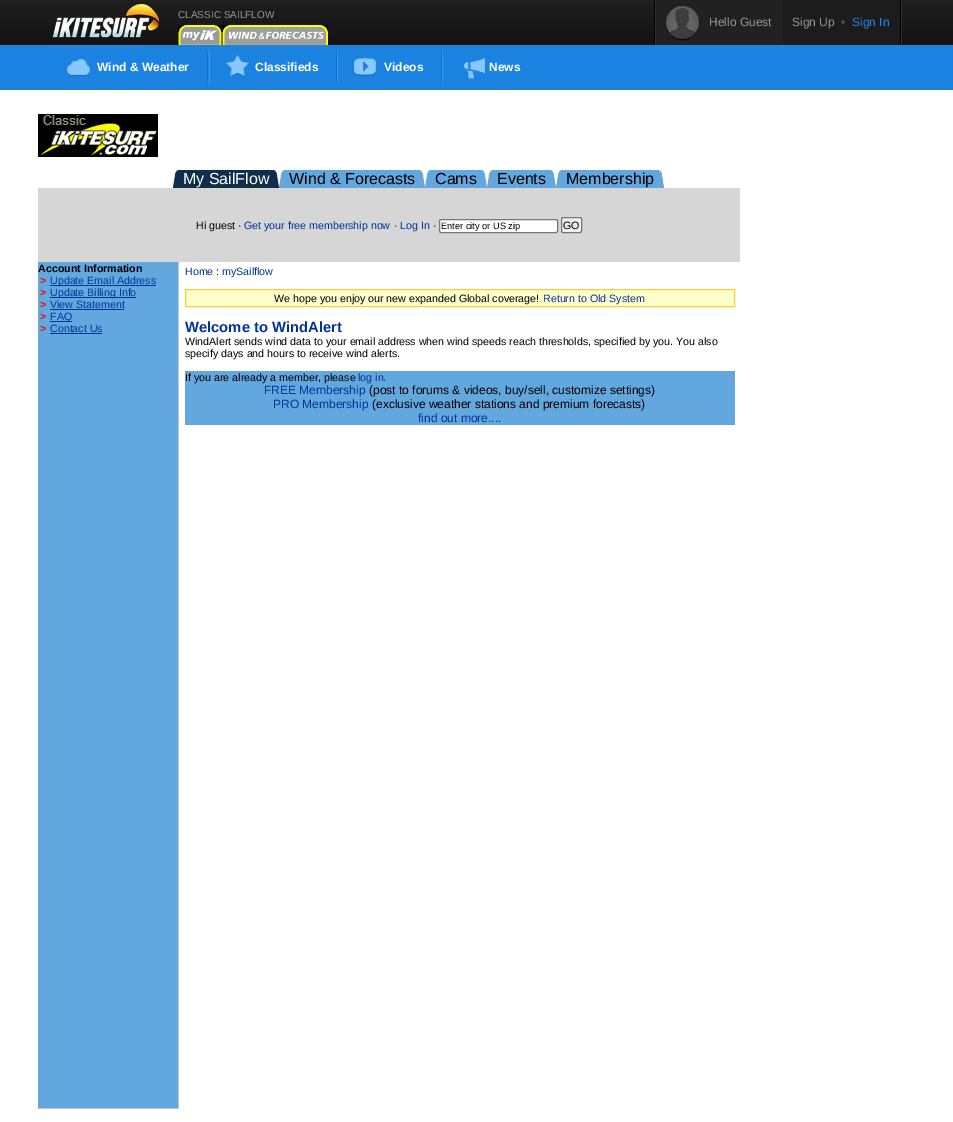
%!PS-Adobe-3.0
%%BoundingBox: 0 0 953 1122
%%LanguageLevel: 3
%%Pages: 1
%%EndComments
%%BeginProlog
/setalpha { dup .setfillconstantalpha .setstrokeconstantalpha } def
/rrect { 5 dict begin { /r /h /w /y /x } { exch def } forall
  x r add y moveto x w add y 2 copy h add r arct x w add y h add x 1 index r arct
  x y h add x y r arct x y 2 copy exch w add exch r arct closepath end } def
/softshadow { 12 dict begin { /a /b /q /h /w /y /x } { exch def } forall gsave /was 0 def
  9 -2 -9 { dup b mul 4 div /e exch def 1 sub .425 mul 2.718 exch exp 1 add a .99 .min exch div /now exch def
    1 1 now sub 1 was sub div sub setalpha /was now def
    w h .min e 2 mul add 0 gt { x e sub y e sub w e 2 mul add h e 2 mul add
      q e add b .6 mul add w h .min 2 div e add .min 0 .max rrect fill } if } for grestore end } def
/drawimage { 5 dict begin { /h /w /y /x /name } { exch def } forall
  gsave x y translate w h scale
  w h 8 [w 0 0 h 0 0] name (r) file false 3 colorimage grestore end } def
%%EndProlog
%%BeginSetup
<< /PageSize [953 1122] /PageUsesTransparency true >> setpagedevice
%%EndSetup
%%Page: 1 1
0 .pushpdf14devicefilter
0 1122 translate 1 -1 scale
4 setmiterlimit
1 setgray
0 0 953 1122 rectfill
(images/1.raw) 0 0 953 45 drawimage
(images/2.raw) 52 4 108 34 drawimage
(images/3.raw) 178 25 44 20 drawimage
(images/4.raw) 222 25 106 20 drawimage
0.184 setgray
901 0 1 45 rectfill
0 setgray
654 0 1 45 rectfill
900 0 1 45 rectfill
0.184 setgray
655 0 1 45 rectfill
0.129 setgray
656 1 126 44 rectfill
0 setgray
666 7 33 33 16.5 0.5 0.75 softshadow
(images/5.raw) 666 6 33 33 drawimage
0.11 setgray
782 0 118 45 rectfill
(images/6.raw) 0 45 953 45 drawimage
(images/7.raw) 67 59 23 17 drawimage
(images/8.raw) 207 48 3 39 drawimage
(images/9.raw) 226 55 23 22 drawimage
(images/10.raw) 336 48 2 39 drawimage
(images/11.raw) 354 58 22 18 drawimage
(images/10.raw) 441 48 2 39 drawimage
(images/12.raw) 464 58 21 21 drawimage
(images/13.raw) 38 114 120 43 drawimage
0.059 0.18 0.29 setrgbcolor
179 170 94 18 rectfill
(images/14.raw) 173 170 6 18 drawimage
(images/15.raw) 273 170 6 18 drawimage
0.384 0.659 0.875 setrgbcolor
285 170 134 18 rectfill
(images/16.raw) 279 170 6 18 drawimage
(images/17.raw) 419 170 6 18 drawimage
431 170 50 18 rectfill
(images/16.raw) 425 170 6 18 drawimage
(images/17.raw) 481 170 6 18 drawimage
493 170 57 18 rectfill
(images/16.raw) 487 170 6 18 drawimage
(images/17.raw) 550 170 6 18 drawimage
562 170 96 18 rectfill
(images/16.raw) 556 170 6 18 drawimage
(images/17.raw) 658 170 6 18 drawimage
0.839 setgray
38 188 702 74 rectfill
1 setgray
439.5 219.5 118 13 1.5 rrect gsave fill grestore
0.463 setgray
stroke
0.937 setgray
561.5 217.5 20 15 1.5 rrect gsave fill grestore
0.463 setgray
stroke
0.384 0.659 0.875 setrgbcolor
38 262 140 846 rectfill
0.769 setgray
178 262 1 847 rectfill
37 1108 142 1 rectfill
0 0.2 0.6 setrgbcolor
50 285 106 1 rectfill
50 297 86 1 rectfill
50 309 74 1 rectfill
50 321 22 1 rectfill
50 333 52 1 rectfill
1 1 0.8 setrgbcolor
newpath 185.5 289.5 moveto 734.5 289.5 lineto 734.5 306.5 lineto 185.5 306.5 lineto closepath gsave fill grestore
1 0.8 0.2 setrgbcolor
stroke
0.384 0.659 0.875 setrgbcolor
185 371 550 54 rectfill
/LiberationSans-Regular [10 0 0 -10 0 0] selectfont
0.584 setgray
178 18 moveto (CLASSIC SAILFLOW) show
/LiberationSans-Regular [12 0 0 -12 0 0] selectfont
709 26 moveto (Hello Guest) show
792 26 moveto (Sign Up) show
0.333 setgray
841 26 moveto (•) show
0.11 0.522 0.886 setrgbcolor
852 26 moveto (Sign In) show
/LiberationSans-Bold [12 0 0 -12 0 0] selectfont
1 setgray
97 71 moveto (Wind & Weather) show
255 71 moveto (Classifieds) show
384 71 moveto (Videos) show
489 71 moveto (News) show
/LiberationSans-Regular [16 0 0 -16 0 0] selectfont
183 184 moveto (My SailFlow) show
0 setgray
289 184 moveto (Wind & Forecasts) show
435 184 moveto (Cams) show
497 184 moveto (Events) show
566 184 moveto (Membership) show
/LiberationSans-Regular [10.65 0 0 -10.65 0 0] selectfont
196 229 moveto (Hi guest ·) show
0 0.2 0.6 setrgbcolor
244 229 moveto (Get your free membership now) show
0 setgray
394 229 moveto (·) show
0 0.2 0.6 setrgbcolor
400 229 moveto (Log In) show
0 setgray
433 229 moveto (·) show
/LiberationSans-Regular [9.25 0 0 -9.25 0 0] selectfont
441 229 moveto (Enter city or US zip) show
/LiberationSans-Regular [10.65 0 0 -10.65 0 0] selectfont
563 229 moveto (GO) show
/LiberationSans-Bold [10.65 0 0 -10.65 0 0] selectfont
38 272 moveto (Account Information) show
1 0 0 setrgbcolor
40 284 moveto (>) show
/LiberationSans-Regular [10.65 0 0 -10.65 0 0] selectfont
0 0.2 0.6 setrgbcolor
50 284 moveto (Update Email Address) show
/LiberationSans-Bold [10.65 0 0 -10.65 0 0] selectfont
1 0 0 setrgbcolor
40 296 moveto (>) show
/LiberationSans-Regular [10.65 0 0 -10.65 0 0] selectfont
0 0.2 0.6 setrgbcolor
50 296 moveto (Update Billing Info) show
/LiberationSans-Bold [10.65 0 0 -10.65 0 0] selectfont
1 0 0 setrgbcolor
40 308 moveto (>) show
/LiberationSans-Regular [10.65 0 0 -10.65 0 0] selectfont
0 0.2 0.6 setrgbcolor
50 308 moveto (View Statement) show
/LiberationSans-Bold [10.65 0 0 -10.65 0 0] selectfont
1 0 0 setrgbcolor
40 320 moveto (>) show
/LiberationSans-Regular [10.65 0 0 -10.65 0 0] selectfont
0 0.2 0.6 setrgbcolor
50 320 moveto (FAQ) show
/LiberationSans-Bold [10.65 0 0 -10.65 0 0] selectfont
1 0 0 setrgbcolor
40 332 moveto (>) show
/LiberationSans-Regular [10.65 0 0 -10.65 0 0] selectfont
0 0.2 0.6 setrgbcolor
50 332 moveto (Contact Us) show
185 275 moveto (Home) show
0 setgray
216 275 moveto (:) show
0 0.2 0.6 setrgbcolor
222 275 moveto (mySailflow) show
0 setgray
274 302 moveto (We hope you enjoy our new expanded Global coverage!) show
0 0.2 0.6 setrgbcolor
543 302 moveto (Return to Old System) show
/LiberationSans-Bold [14.75 0 0 -14.75 0 0] selectfont
185 332 moveto (Welcome to WindAlert) show
/LiberationSans-Regular [10.65 0 0 -10.65 0 0] selectfont
0 setgray
185 345 moveto (WindAlert sends wind data to your email address when wind speeds reach thresholds, specified by you. You also) show
185 357 moveto (specify days and hours to receive wind alerts.) show
185 381 moveto (If you are already a member, please) show
0 0.2 0.6 setrgbcolor
358 381 moveto (log in.) show
/LiberationSans-Regular [12 0 0 -12 0 0] selectfont
264 394 moveto (FREE Membership) show
0 setgray
369 394 moveto (\(post to forums & videos, buy/sell, customize settings\)) show
0 0.2 0.6 setrgbcolor
273 408 moveto (PRO Membership) show
0 setgray
372 408 moveto (\(exclusive weather stations and premium forecasts\)) show
0 0.2 0.6 setrgbcolor
418 422 moveto (find out more....) show
.poppdf14devicefilter showpage
%%EOF
